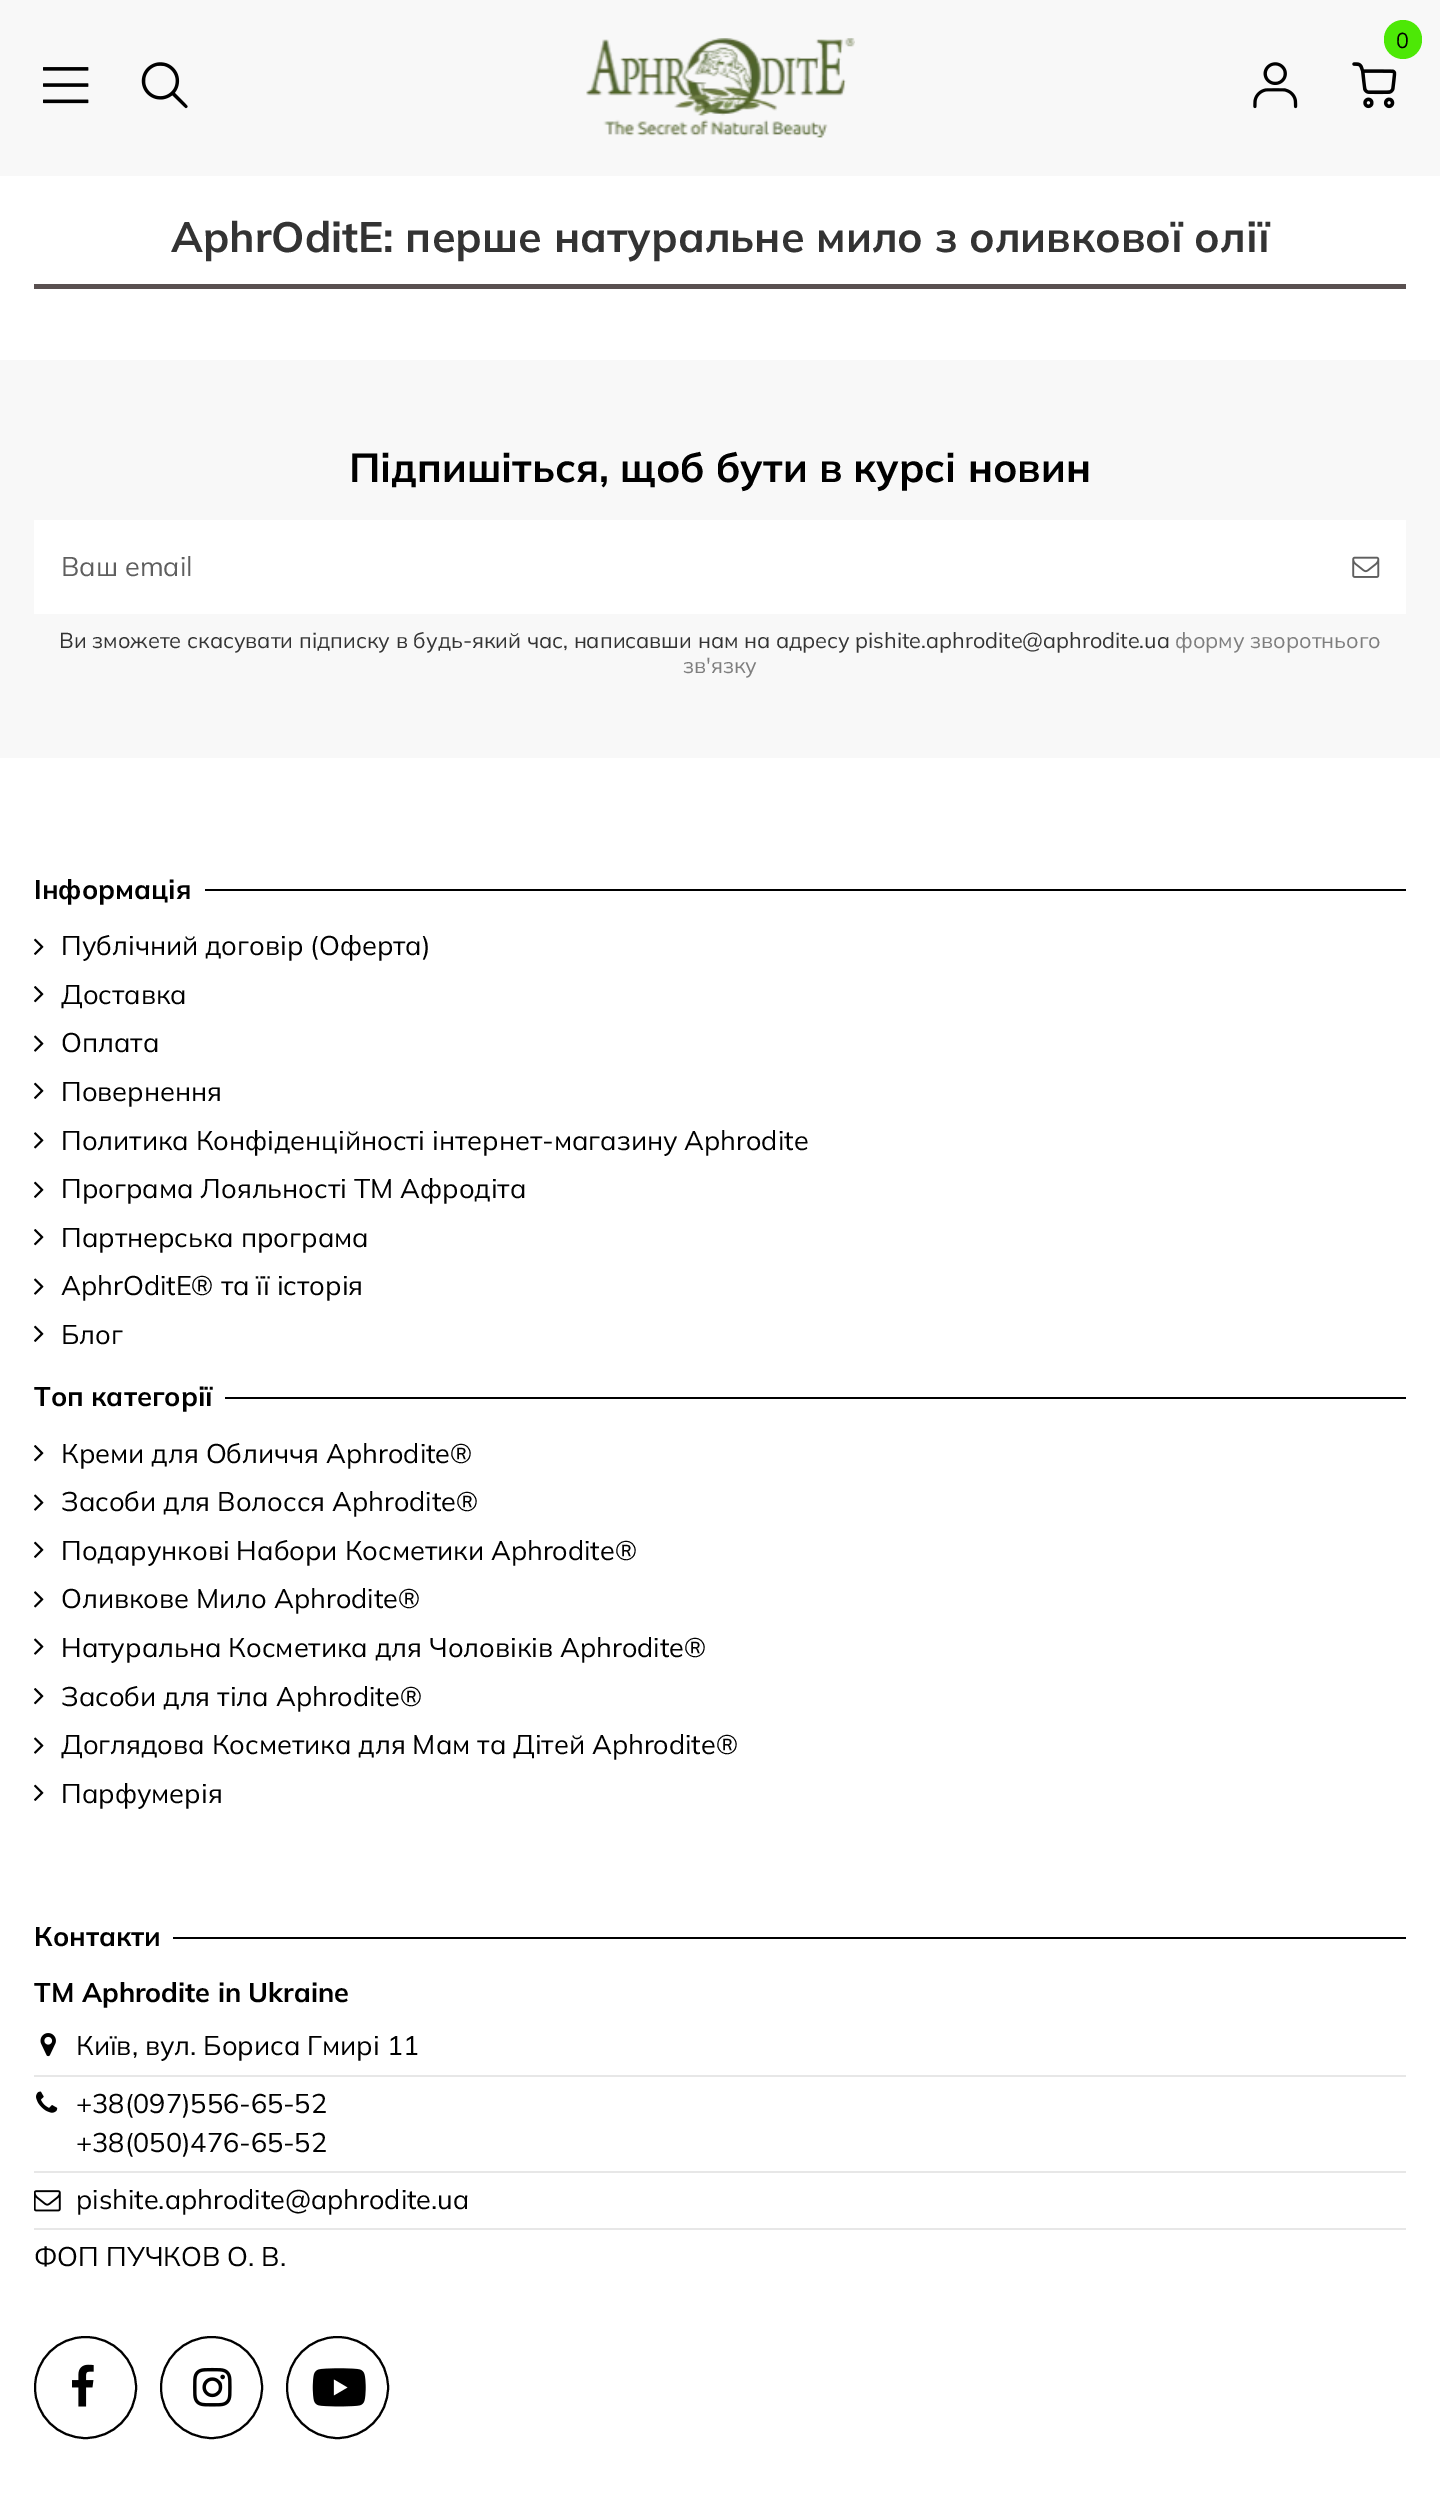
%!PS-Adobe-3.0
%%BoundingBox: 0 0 1440 2500
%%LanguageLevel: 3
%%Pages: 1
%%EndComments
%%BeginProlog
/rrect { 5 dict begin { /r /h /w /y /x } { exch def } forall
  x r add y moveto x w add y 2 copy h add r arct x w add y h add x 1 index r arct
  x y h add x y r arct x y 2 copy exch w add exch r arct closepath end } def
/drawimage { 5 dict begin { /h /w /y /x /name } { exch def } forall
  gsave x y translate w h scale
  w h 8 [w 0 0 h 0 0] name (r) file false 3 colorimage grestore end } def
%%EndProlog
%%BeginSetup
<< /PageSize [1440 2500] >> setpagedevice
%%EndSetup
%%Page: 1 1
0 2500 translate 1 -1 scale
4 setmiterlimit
1 setgray
0 0 1440 2500 rectfill
0.973 setgray
0 0 1440 176 rectfill
(images/1.raw) 43 67 46 37 drawimage
(images/2.raw) 141 62 47 47 drawimage
(images/3.raw) 586 38 269 100 drawimage
(images/4.raw) 1253 62 45 47 drawimage
0.302 0.91 0.024 setrgbcolor
1384 20 38 39 19 rrect fill
(images/5.raw) 1352 62 45 47 drawimage
0.349 0.314 0.314 setrgbcolor
34 284 1372 5 rectfill
0.973 setgray
0 360 1440 398 rectfill
1 setgray
34 520 1372 94 rectfill
(images/6.raw) 1352 556 28 22 drawimage
0 setgray
205 889 1201 2 rectfill
(images/7.raw) 34 938 10 17 drawimage
(images/8.raw) 34 986 10 17 drawimage
(images/9.raw) 34 1035 10 17 drawimage
(images/7.raw) 34 1082 10 17 drawimage
(images/10.raw) 34 1132 10 17 drawimage
(images/7.raw) 34 1181 10 17 drawimage
(images/8.raw) 34 1229 10 17 drawimage
(images/9.raw) 34 1278 10 17 drawimage
(images/7.raw) 34 1325 10 17 drawimage
225 1397 1181 2 rectfill
(images/8.raw) 34 1445 10 17 drawimage
(images/9.raw) 34 1494 10 17 drawimage
(images/7.raw) 34 1541 10 17 drawimage
(images/10.raw) 34 1591 10 17 drawimage
(images/9.raw) 34 1638 10 17 drawimage
(images/8.raw) 34 1688 10 17 drawimage
(images/9.raw) 34 1737 10 17 drawimage
(images/7.raw) 34 1784 10 17 drawimage
173 1937 1233 2 rectfill
(images/11.raw) 40 2033 16 24 drawimage
0.906 setgray
34 2075 1372 2 rectfill
(images/12.raw) 36 2091 22 22 drawimage
34 2171 1372 2 rectfill
(images/13.raw) 34 2190 27 22 drawimage
34 2228 1372 2 rectfill
0 setgray
2 setlinewidth
newpath 85.5 2387.5 50.5 0 360 arc closepath stroke
(images/14.raw) 72 2364 22 43 drawimage
newpath 211.5 2387.5 50.5 0 360 arc closepath stroke
(images/15.raw) 193 2367 39 40 drawimage
newpath 337.5 2387.5 50.5 0 360 arc closepath stroke
(images/16.raw) 312 2368 54 39 drawimage
/Mulish-Regular [21.6 0 0 -21.6 0 0] selectfont
1396 48 moveto (0) show
/Mulish-Bold [42.4 0 0 -42.4 0 0] selectfont
0.2 setgray
171 252 moveto (AphrOditE: перше натуральне мило з оливкової олії) show
/Mulish-Bold [40.5 0 0 -40.5 0 0] selectfont
0 setgray
349 482 moveto (Підпишіться, щоб бути в курсі новин) show
/Mulish-Regular [27 0 0 -27 0 0] selectfont
0.373 setgray
61 576 moveto (Ваш email) show
/Mulish-Regular [21.6 0 0 -21.6 0 0] selectfont
0.2 setgray
59 648 moveto (Ви зможете скасувати підписку в будь-який час, написавши нам на адресу pishite.aphrodite@aphrodite.ua) show
0.494 setgray
1175 648 moveto (форму зворотнього) show
683 673 moveto (зв'язку) show
/Mulish-Bold [27 0 0 -27 0 0] selectfont
0 setgray
34 899 moveto (Інформація) show
/Mulish-Regular [27 0 0 -27 0 0] selectfont
61 955 moveto (Публічний договір \(Оферта\)) show
61 1004 moveto (Доставка) show
61 1052 moveto (Оплата) show
61 1101 moveto (Повернення) show
61 1150 moveto (Политика Конфіденційності інтернет-магазину Aphrodite) show
61 1198 moveto (Програма Лояльності ТМ Афродіта) show
61 1247 moveto (Партнерська програма) show
61 1295 moveto (AphrOditE® та її історія) show
61 1344 moveto (Блог) show
/Mulish-Bold [27 0 0 -27 0 0] selectfont
34 1406 moveto (Топ категорії) show
/Mulish-Regular [27 0 0 -27 0 0] selectfont
61 1463 moveto (Креми для Обличчя Aphrodite®) show
61 1511 moveto (Засоби для Волосся Aphrodite®) show
61 1560 moveto (Подарункові Набори Косметики Aphrodite®) show
61 1608 moveto (Оливкове Мило Aphrodite®) show
61 1657 moveto (Натуральна Косметика для Чоловіків Aphrodite®) show
61 1706 moveto (Засоби для тіла Aphrodite®) show
61 1754 moveto (Доглядова Косметика для Мам та Дітей Aphrodite®) show
61 1803 moveto (Парфумерія) show
/Mulish-Bold [27 0 0 -27 0 0] selectfont
34 1946 moveto (Контакти) show
34 2002 moveto (TM Aphrodite in Ukraine) show
/Mulish-Regular [27 0 0 -27 0 0] selectfont
76 2055 moveto (Київ, вул. Бориса Гмирі 11) show
76 2113 moveto (+38\(097\)556-65-52) show
76 2152 moveto (+38\(050\)476-65-52) show
76 2209 moveto (pishite.aphrodite@aphrodite.ua) show
34 2266 moveto (ФОП ПУЧКОВ О. В.) show
showpage
%%EOF
